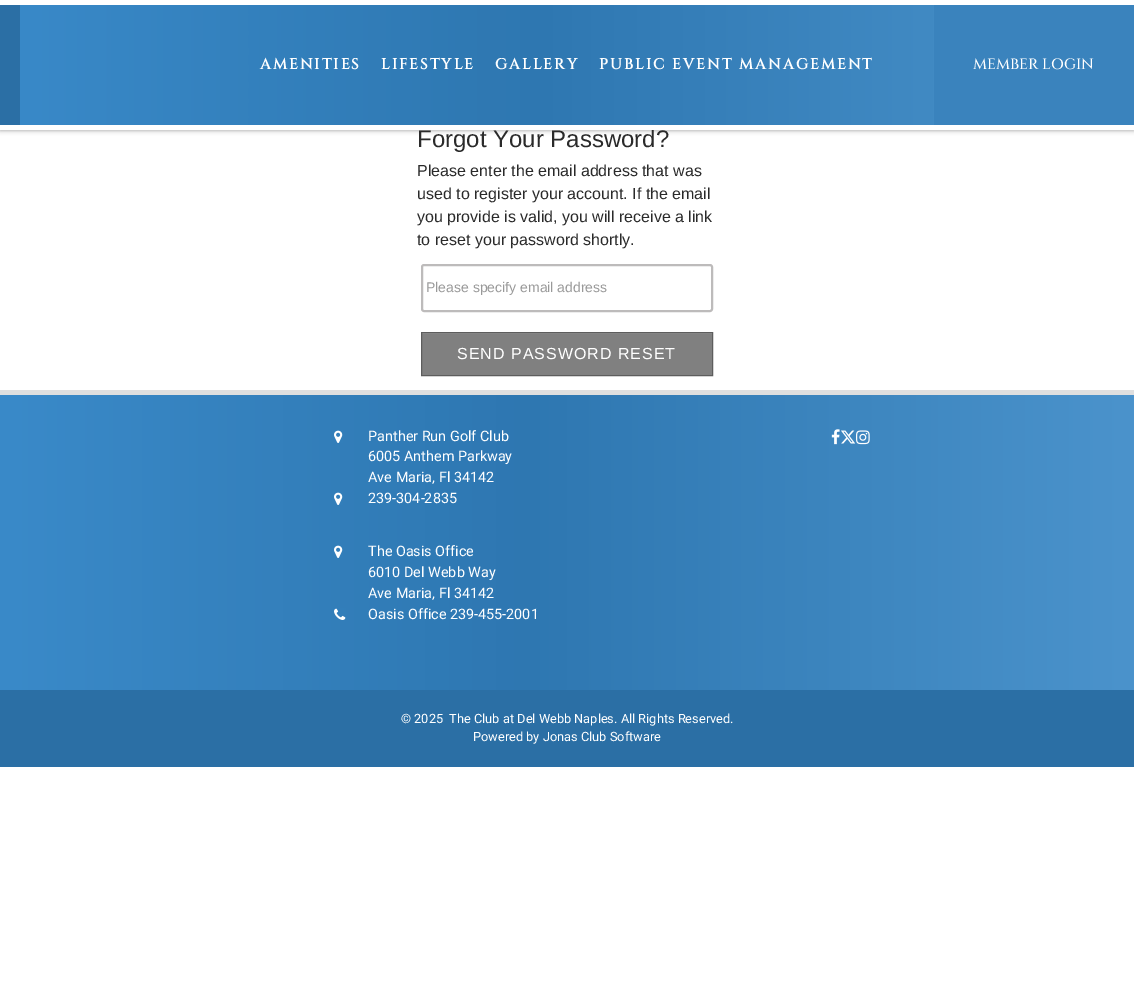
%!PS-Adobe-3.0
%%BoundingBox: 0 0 1134 1006
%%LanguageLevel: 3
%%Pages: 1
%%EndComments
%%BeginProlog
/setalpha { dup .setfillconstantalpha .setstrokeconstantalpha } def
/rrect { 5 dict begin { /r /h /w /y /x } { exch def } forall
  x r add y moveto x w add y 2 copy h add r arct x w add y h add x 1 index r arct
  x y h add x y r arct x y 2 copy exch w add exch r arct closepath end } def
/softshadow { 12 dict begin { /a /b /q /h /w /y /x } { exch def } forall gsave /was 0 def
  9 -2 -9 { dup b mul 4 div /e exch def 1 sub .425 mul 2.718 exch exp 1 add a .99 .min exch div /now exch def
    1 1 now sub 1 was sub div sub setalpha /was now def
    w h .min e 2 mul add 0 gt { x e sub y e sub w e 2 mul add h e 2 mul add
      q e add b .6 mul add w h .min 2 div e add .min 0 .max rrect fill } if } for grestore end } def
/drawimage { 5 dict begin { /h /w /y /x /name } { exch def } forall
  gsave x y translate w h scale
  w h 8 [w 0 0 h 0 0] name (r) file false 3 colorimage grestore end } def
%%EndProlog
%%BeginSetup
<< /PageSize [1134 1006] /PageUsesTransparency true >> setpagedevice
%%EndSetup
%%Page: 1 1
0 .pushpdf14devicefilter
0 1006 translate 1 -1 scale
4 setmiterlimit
1 setgray
0 0 1134 1006 rectfill
0 setgray
0 0 1134 130 0 2.5 0.4 softshadow
gsave newpath 20 5 moveto 934 5 lineto 934 125 lineto 20 125 lineto closepath clip newpath
<< /ShadingType 2 /ColorSpace /DeviceRGB /Coords [0 65 1134 65] /Extend [true true] /Function << /FunctionType 3 /Domain [0 1] /Functions [<< /FunctionType 2 /Domain [0 1] /C0 [0.227 0.541 0.788] /C1 [0.18 0.467 0.694] /N 1 >> << /FunctionType 2 /Domain [0 1] /C0 [0.18 0.467 0.694] /C1 [0.294 0.576 0.8] /N 1 >>] /Bounds [0.47] /Encode [0 1 0 1] >> >> shfill grestore
1 setgray
0 0 1134 5 rectfill
0.169 0.435 0.647 setrgbcolor
0 5 20 120 rectfill
0.227 0.514 0.741 setrgbcolor
934 5 200 120 rectfill
0.741 0.733 0.733 setrgbcolor
2 setlinewidth
422 265 290 46 2 rrect stroke
0.502 setgray
422 334 290 41 rectfill
0.576 setgray
422 333 290 1 rectfill
0.365 setgray
1 setlinewidth
421.5 332.5 291 43 rectstroke
gsave newpath 0 395 moveto 1134 395 lineto 1134 690 lineto 0 690 lineto closepath clip newpath
<< /ShadingType 2 /ColorSpace /DeviceRGB /Coords [0 581 1134 581] /Extend [true true] /Function << /FunctionType 3 /Domain [0 1] /Functions [<< /FunctionType 2 /Domain [0 1] /C0 [0.227 0.541 0.788] /C1 [0.18 0.467 0.694] /N 1 >> << /FunctionType 2 /Domain [0 1] /C0 [0.18 0.467 0.694] /C1 [0.294 0.576 0.8] /N 1 >>] /Bounds [0.47] /Encode [0 1 0 1] >> >> shfill grestore
0.875 setgray
0 390 1134 5 rectfill
(images/1.raw) 334 430 9 13 drawimage
(images/1.raw) 334 492 9 13 drawimage
(images/1.raw) 334 545 9 13 drawimage
(images/2.raw) 334 608 12 12 drawimage
(images/3.raw) 831 429 9 16 drawimage
(images/4.raw) 841 430 15 14 drawimage
(images/5.raw) 856 430 14 15 drawimage
0.169 0.435 0.647 setrgbcolor
0 690 1134 77 rectfill
/Cinzel-Bold [15 0 0 -15 0 0] selectfont
1 setgray
260 69 moveto 2 0 (AMENITIES) ashow
381 69 moveto 2 0 (LIFESTYLE) ashow
495 69 moveto 2 0 (GALLERY) ashow
599 69 moveto 2 0 (PUBLIC EVENT MANAGEMENT) ashow
/Cinzel-Medium [15 0 0 -15 0 0] selectfont
973 69 moveto (MEMBER LOGIN) show
/LiberationSans-Regular [24 0 0 -24 0 0] selectfont
0.165 setgray
417 147 moveto (Forgot Your Password?) show
1 setgray
0 125 1134 5 rectfill
/LiberationSans-Regular [16 0 0 -16 0 0] selectfont
0.165 setgray
417 176 moveto (Please enter the email address that was) show
417 199 moveto (used to register your account. If the email) show
417 222 moveto (you provide is valid, you will receive a link) show
417 245 moveto (to reset your password shortly.) show
/LiberationSans-Regular [14 0 0 -14 0 0] selectfont
0.6 setgray
426 292 moveto (Please specify email address) show
/LiberationSans-Regular [16 0 0 -16 0 0] selectfont
1 setgray
457 359 moveto 1 0 (SEND PASSWORD RESET) ashow
/Roboto-Regular [14.4 0 0 -14.4 0 0] selectfont
368 441 moveto (Panther Run Golf Club) show
368 461 moveto (6005 Anthem Parkway) show
368 482 moveto (Ave Maria, Fl 34142) show
368 503 moveto (239-304-2835) show
368 556 moveto (The Oasis Office) show
368 577 moveto (6010 Del Webb Way) show
368 598 moveto (Ave Maria, Fl 34142) show
368 619 moveto (Oasis Office 239-455-2001) show
/Roboto-Regular [12.8 0 0 -12.8 0 0] selectfont
401 723 moveto (© 2025  The Club at Del Webb Naples. All Rights Reserved.) show
473 741 moveto (Powered by Jonas Club Software) show
.poppdf14devicefilter showpage
%%EOF
